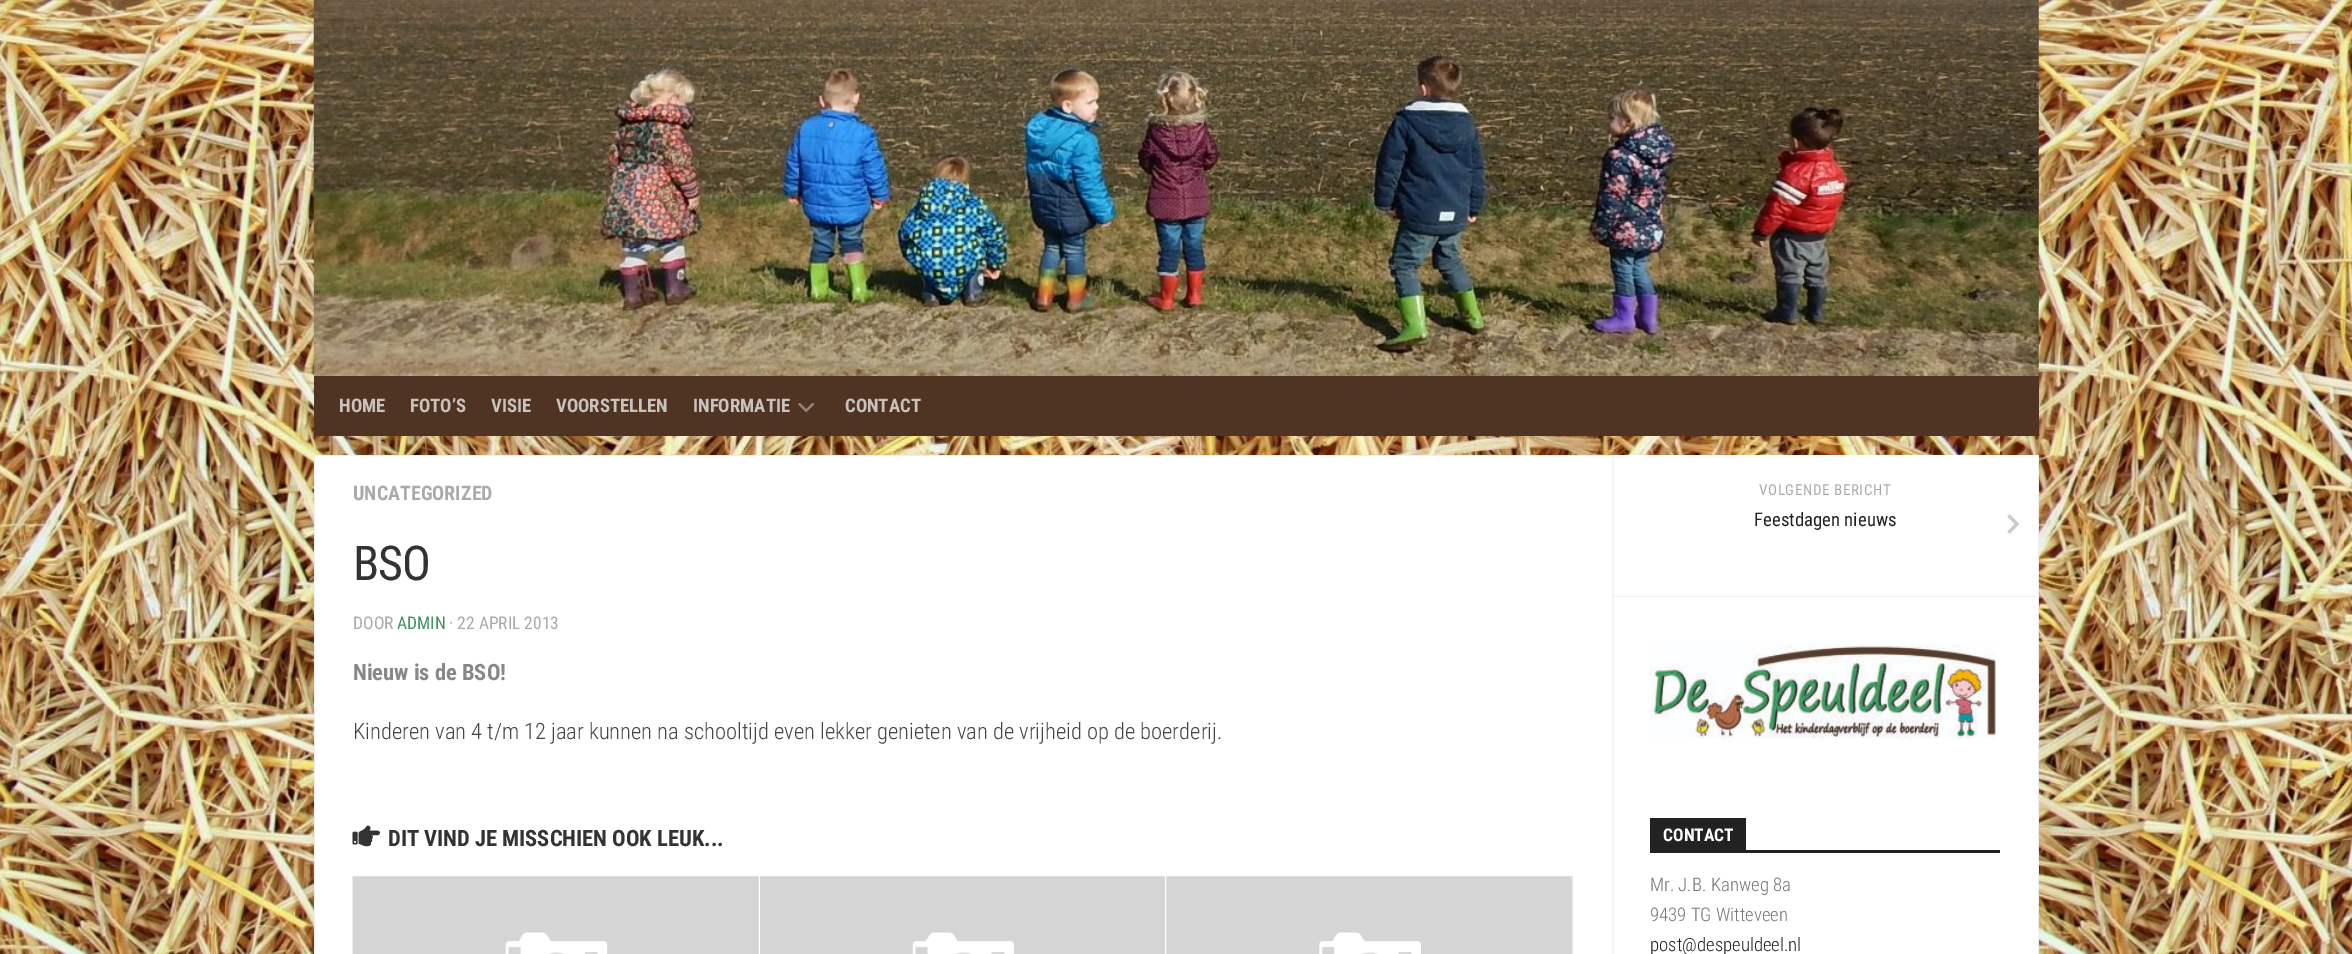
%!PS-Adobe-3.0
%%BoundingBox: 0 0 2352 954
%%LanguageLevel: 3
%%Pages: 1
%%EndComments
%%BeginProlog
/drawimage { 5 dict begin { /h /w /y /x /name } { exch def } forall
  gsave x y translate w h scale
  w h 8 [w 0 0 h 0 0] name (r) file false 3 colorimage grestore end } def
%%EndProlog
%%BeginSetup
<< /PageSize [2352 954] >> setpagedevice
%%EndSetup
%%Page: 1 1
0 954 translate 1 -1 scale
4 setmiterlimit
1 setgray
0 0 2352 954 rectfill
(images/1.raw) 0 0 2352 954 drawimage
(images/2.raw) 313 0 1726 377 drawimage
0.31 0.2 0.137 setrgbcolor
314 376 1725 60 rectfill
(images/3.raw) 798 403 17 10 drawimage
1 setgray
315 455 1723 499 rectfill
0.933 setgray
2038 455 1 499 rectfill
314 455 1 499 rectfill
(images/4.raw) 1612 455 2 499 drawimage
315 455 1298 1 rectfill
(images/5.raw) 352 825 28 22 drawimage
(images/6.raw) 352 876 407 78 drawimage
(images/7.raw) 760 876 405 78 drawimage
(images/8.raw) 1166 876 407 78 drawimage
1613 596 425 1 rectfill
(images/9.raw) 2007 514 12 20 drawimage
(images/10.raw) 1650 644 346 95 drawimage
0.133 setgray
1650 850 350 3 rectfill
1650 818 96 32 rectfill
/RobotoCondensed-Bold [18.75 0 0 -18.75 0 0] selectfont
0.792 0.761 0.741 setrgbcolor
339 412 moveto (HOME) show
410 412 moveto (FOTO’S) show
491 412 moveto (VISIE) show
556 412 moveto (VOORSTELLEN) show
693 412 moveto (INFORMATIE) show
845 412 moveto (CONTACT) show
/RobotoCondensed-Bold [20 0 0 -20 0 0] selectfont
0.667 setgray
353 500 moveto (UNCATEGORIZED) show
/RobotoCondensed-Regular [48 0 0 -48 0 0] selectfont
0.2 setgray
353 580 moveto -1 0 (BSO) ashow
/RobotoCondensed-Regular [17.5 0 0 -17.5 0 0] selectfont
0.667 setgray
353 629 moveto (DOOR) show
0.247 0.576 0.373 setrgbcolor
397 629 moveto (ADMIN) show
0.667 setgray
449 629 moveto (· 22 APRIL 2013) show
/RobotoCondensed-Bold [22.5 0 0 -22.5 0 0] selectfont
0.533 setgray
353 680 moveto (Nieuw is de BSO!) show
/RobotoCondensed-Light [22.5 0 0 -22.5 0 0] selectfont
0.267 setgray
353 739 moveto (Kinderen van 4 t/m 12 jaar kunnen na schooltijd even lekker genieten van de vrijheid op de boerderij.) show
/RobotoCondensed-Bold [22.5 0 0 -22.5 0 0] selectfont
0.2 setgray
388 846 moveto (DIT VIND JE MISSCHIEN OOK LEUK...) show
/RobotoCondensed-Regular [15 0 0 -15 0 0] selectfont
0.667 setgray
1759 495 moveto 0.6 0 (VOLGENDE BERICHT) ashow
/RobotoCondensed-Regular [18.75 0 0 -18.75 0 0] selectfont
0.133 setgray
1754 526 moveto (Feestdagen nieuws) show
/RobotoCondensed-Bold [17.5 0 0 -17.5 0 0] selectfont
1 setgray
1663 841 moveto (CONTACT) show
/RobotoCondensed-Light [18.75 0 0 -18.75 0 0] selectfont
0.467 setgray
1650 891 moveto (Mr. J.B. Kanweg 8a) show
1650 921 moveto (9439 TG Witteveen) show
0.133 setgray
1650 951 moveto (post@despeuldeel.nl) show
showpage
%%EOF
